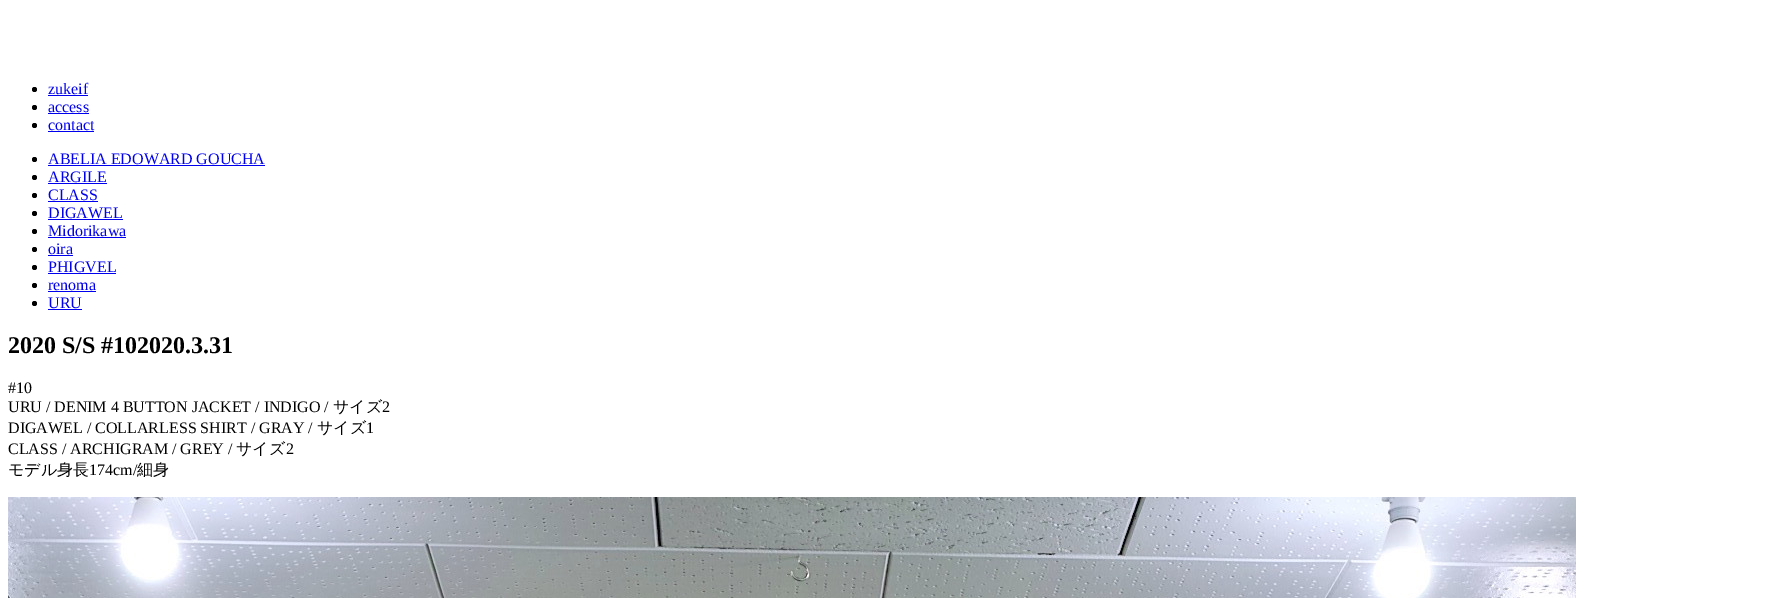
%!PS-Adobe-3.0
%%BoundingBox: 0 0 1766 598
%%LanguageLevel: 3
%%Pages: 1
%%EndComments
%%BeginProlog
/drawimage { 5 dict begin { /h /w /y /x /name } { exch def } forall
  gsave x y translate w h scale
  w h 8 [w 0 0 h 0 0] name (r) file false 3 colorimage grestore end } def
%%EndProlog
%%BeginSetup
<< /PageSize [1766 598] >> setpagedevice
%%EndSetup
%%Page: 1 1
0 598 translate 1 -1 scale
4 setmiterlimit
1 setgray
0 0 1766 598 rectfill
0 setgray
newpath 34.5 89.5 2.5 0 360 arc closepath fill
0 0 0.933 setrgbcolor
48 95 40 1 rectfill
0 setgray
newpath 34.5 107.5 2.5 0 360 arc closepath fill
0 0 0.933 setrgbcolor
48 113 41 1 rectfill
0 setgray
newpath 34.5 125.5 2.5 0 360 arc closepath fill
0 0 0.933 setrgbcolor
48 131 46 1 rectfill
0 setgray
newpath 34.5 159.5 2.5 0 360 arc closepath fill
0 0 0.933 setrgbcolor
48 165 217 1 rectfill
0 setgray
newpath 34.5 177.5 2.5 0 360 arc closepath fill
0 0 0.933 setrgbcolor
48 183 59 1 rectfill
0 setgray
newpath 34.5 195.5 2.5 0 360 arc closepath fill
0 0 0.933 setrgbcolor
48 201 50 1 rectfill
0 setgray
newpath 34.5 213.5 2.5 0 360 arc closepath fill
0 0 0.933 setrgbcolor
48 219 75 1 rectfill
0 setgray
newpath 34.5 231.5 2.5 0 360 arc closepath fill
0 0 0.933 setrgbcolor
48 237 78 1 rectfill
0 setgray
newpath 34.5 249.5 2.5 0 360 arc closepath fill
0 0 0.933 setrgbcolor
48 255 25 1 rectfill
0 setgray
newpath 34.5 267.5 2.5 0 360 arc closepath fill
0 0 0.933 setrgbcolor
48 273 68 1 rectfill
0 setgray
newpath 34.5 285.5 2.5 0 360 arc closepath fill
0 0 0.933 setrgbcolor
48 291 48 1 rectfill
0 setgray
newpath 34.5 303.5 2.5 0 360 arc closepath fill
0 0 0.933 setrgbcolor
48 309 34 1 rectfill
(images/1.raw) 8 497 1568 101 drawimage
/LiberationSerif-Regular [16 0 0 -16 0 0] selectfont
48 94 moveto (zukeif) show
48 112 moveto (access) show
48 130 moveto (contact) show
48 164 moveto (ABELIA EDOWARD GOUCHA) show
48 182 moveto (ARGILE) show
48 200 moveto (CLASS) show
48 218 moveto (DIGAWEL) show
48 236 moveto (Midorikawa) show
48 254 moveto (oira) show
48 272 moveto (PHIGVEL) show
48 290 moveto (renoma) show
48 308 moveto (URU) show
/LiberationSerif-Bold [24 0 0 -24 0 0] selectfont
0 setgray
8 353 moveto (2020 S/S #102020.3.31) show
/LiberationSerif-Regular [16 0 0 -16 0 0] selectfont
8 393 moveto (#10) show
8 412 moveto (URU / DENIM 4 BUTTON JACKET / INDIGO /) show
/WenQuanYiZenHei-Medium [16 0 0 -16 0 0] selectfont
333 412 moveto (サイズ) show
/LiberationSerif-Regular [16 0 0 -16 0 0] selectfont
382 412 moveto (2) show
8 433 moveto (DIGAWEL / COLLARLESS SHIRT / GRAY /) show
/WenQuanYiZenHei-Medium [16 0 0 -16 0 0] selectfont
317 433 moveto (サイズ) show
/LiberationSerif-Regular [16 0 0 -16 0 0] selectfont
366 433 moveto (1) show
8 454 moveto (CLASS / ARCHIGRAM / GREY /) show
/WenQuanYiZenHei-Medium [16 0 0 -16 0 0] selectfont
236 454 moveto (サイズ) show
/LiberationSerif-Regular [16 0 0 -16 0 0] selectfont
286 454 moveto (2) show
/WenQuanYiZenHei-Medium [16 0 0 -16 0 0] selectfont
8 475 moveto (モデル身長) show
/LiberationSerif-Regular [16 0 0 -16 0 0] selectfont
89 475 moveto (174cm/) show
/WenQuanYiZenHei-Medium [16 0 0 -16 0 0] selectfont
137 475 moveto (細身) show
showpage
%%EOF
